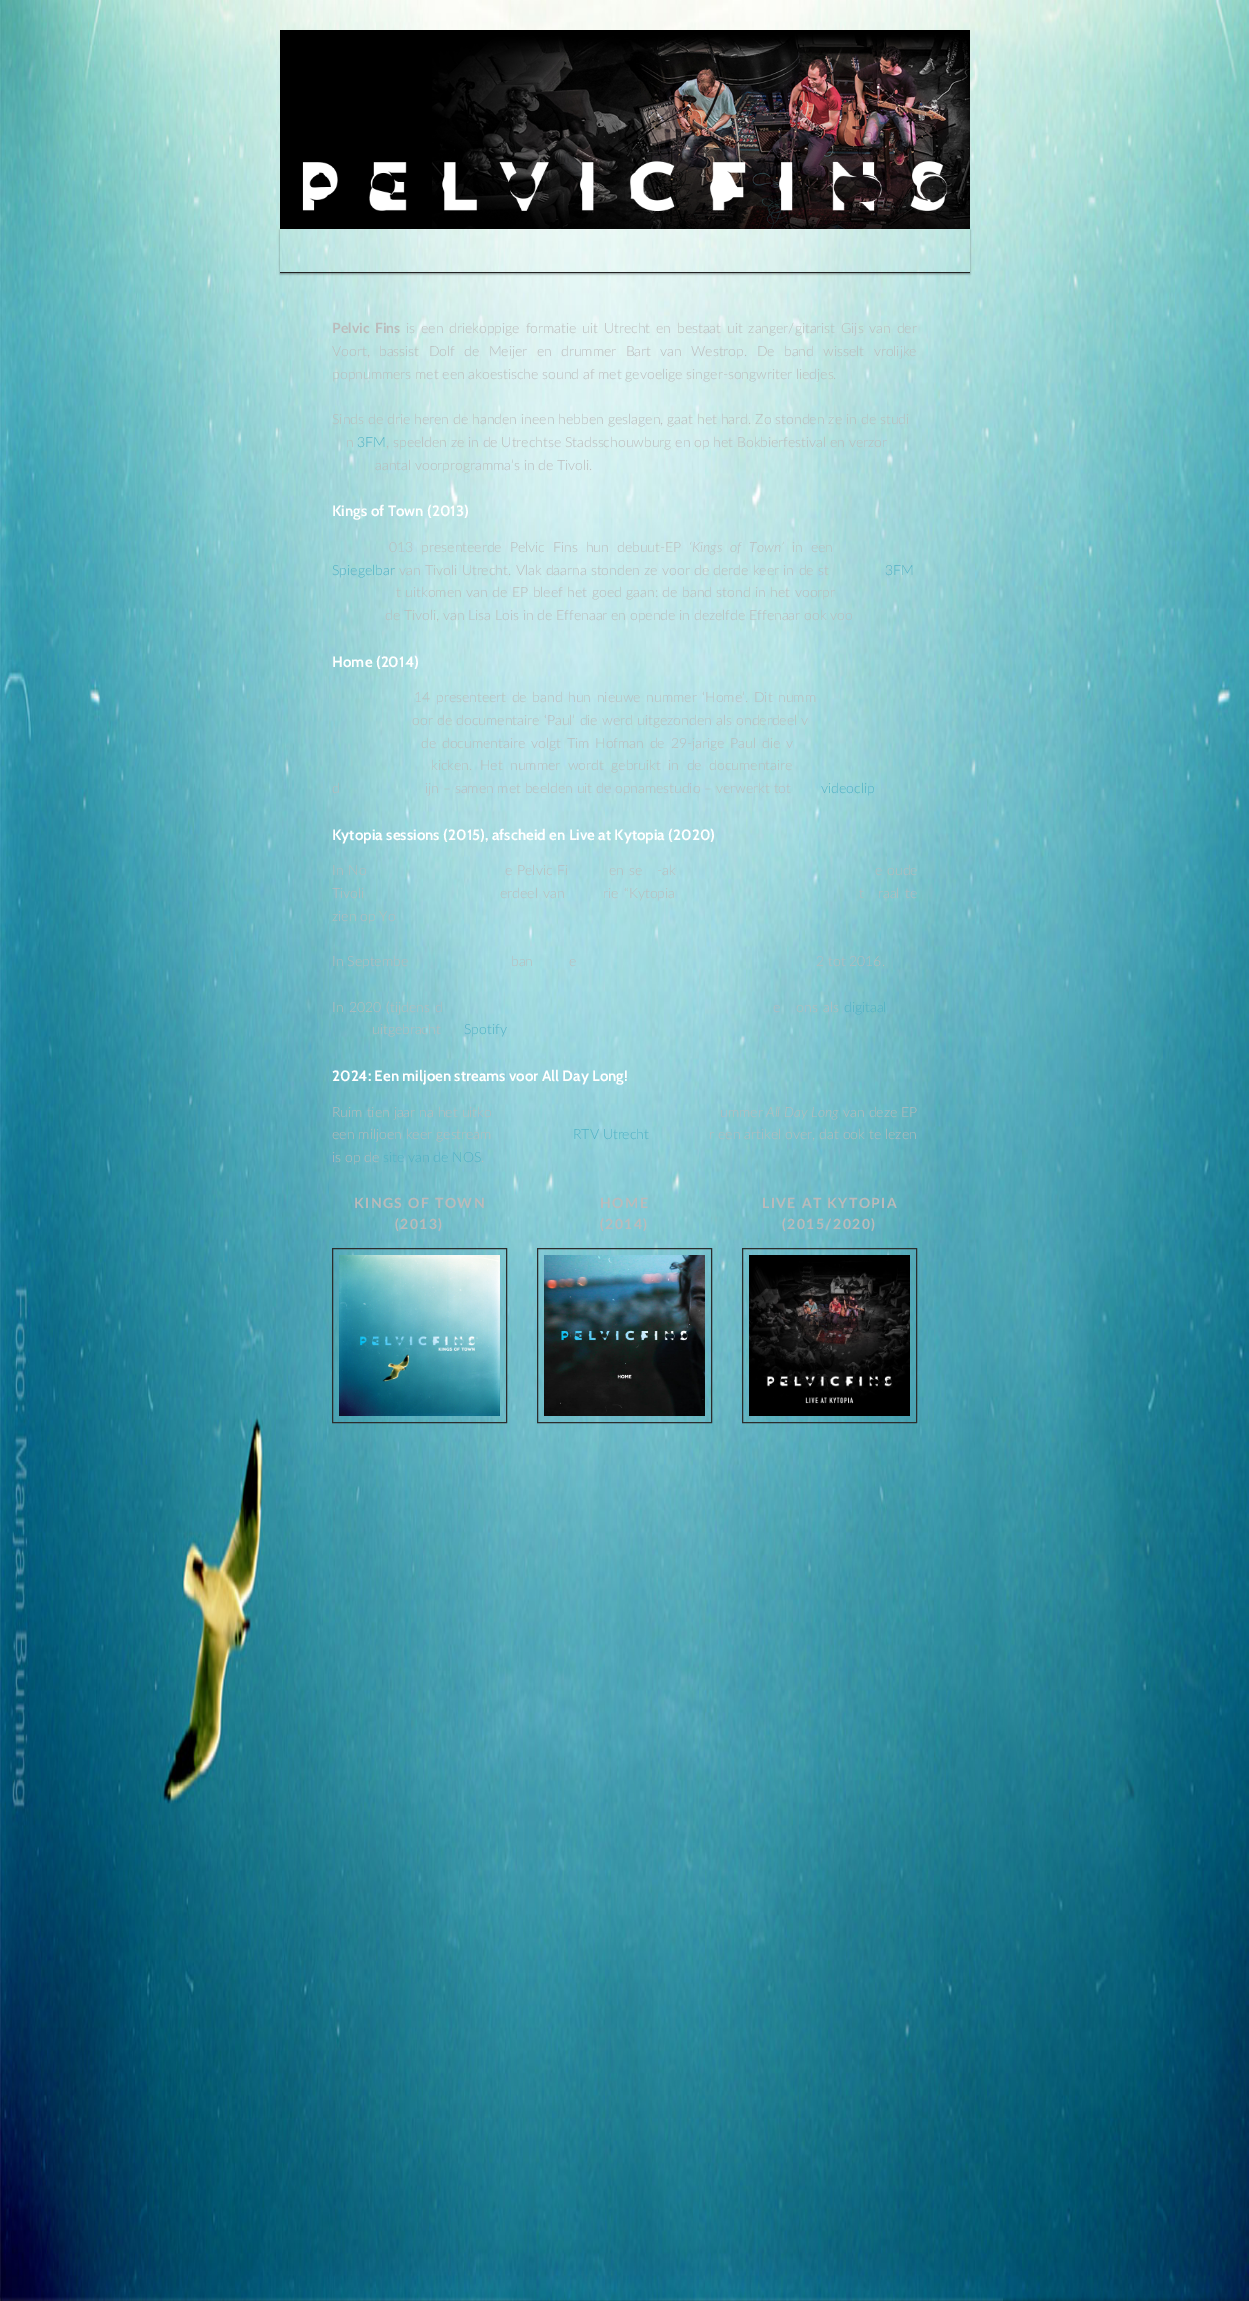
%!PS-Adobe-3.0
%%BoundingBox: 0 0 1249 2301
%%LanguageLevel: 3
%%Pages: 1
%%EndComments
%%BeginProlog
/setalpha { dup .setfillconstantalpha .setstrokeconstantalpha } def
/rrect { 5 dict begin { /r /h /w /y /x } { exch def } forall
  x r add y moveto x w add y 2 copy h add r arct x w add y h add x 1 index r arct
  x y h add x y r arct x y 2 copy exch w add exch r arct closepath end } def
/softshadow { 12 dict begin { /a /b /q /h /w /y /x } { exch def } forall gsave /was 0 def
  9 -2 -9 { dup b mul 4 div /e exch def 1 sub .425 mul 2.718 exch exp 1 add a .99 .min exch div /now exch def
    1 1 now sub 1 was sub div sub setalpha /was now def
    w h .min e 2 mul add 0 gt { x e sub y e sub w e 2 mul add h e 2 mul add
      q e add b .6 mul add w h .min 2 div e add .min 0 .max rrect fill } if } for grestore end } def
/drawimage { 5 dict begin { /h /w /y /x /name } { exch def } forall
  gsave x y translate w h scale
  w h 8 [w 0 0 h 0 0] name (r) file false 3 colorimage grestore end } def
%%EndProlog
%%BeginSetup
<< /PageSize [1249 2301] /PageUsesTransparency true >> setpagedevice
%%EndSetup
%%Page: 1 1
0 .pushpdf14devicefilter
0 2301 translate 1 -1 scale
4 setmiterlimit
1 setgray
0 0 1249 2301 rectfill
(images/1.raw) 0 0 1249 2301 drawimage
gsave
newpath 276 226 moveto 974 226 lineto 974 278 lineto 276 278 lineto closepath 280 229 moveto 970 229 lineto 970 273 lineto 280 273 lineto closepath eoclip newpath
0 setgray
280 230 690 44 0 1 0.4 softshadow
grestore
(images/2.raw) 280 30 690 199 drawimage
0.133 setgray
280 272 690 1 rectfill
0.173 setgray
332.5 1248.5 174 174 rectstroke
(images/3.raw) 339 1255 161 161 drawimage
537.5 1248.5 174 174 rectstroke
(images/4.raw) 544 1255 161 161 drawimage
742.5 1248.5 174 174 rectstroke
(images/5.raw) 749 1255 161 161 drawimage
/Lato-Bold [14 0 0 -14 0 0] selectfont
0.733 setgray
332 333 moveto 2.1 0 32 (Pelvic Fins) widthshow
/Lato-Light [14 0 0 -14 0 0] selectfont
406 333 moveto 2.1 0 32 (is een driekoppige formatie uit Utrecht en bestaat uit zanger/gitarist Gijs van der) widthshow
332 356 moveto 5.6 0 32 (Voort, bassist Dolf de Meijer en drummer Bart van Westrop. De band wisselt vrolijke) widthshow
332 379 moveto (popnummers met een akoestische sound af met gevoelige singer-songwriter liedjes.) show
332 424 moveto 0.25 0 32 (Sinds de drie heren de handen ineen hebben geslagen, gaat het hard. Zo stonden ze in de studi) widthshow
346 447 moveto (n) show
0.306 0.694 0.769 setrgbcolor
357 447 moveto (3FM) show
0.733 setgray
386 447 moveto (, speelden ze in de Utrechtse Stadsschouwburg en op het Bokbierfestival en verzor) show
375 470 moveto (aantal voorprogramma’s in de Tivoli.) show
/Cabin-Bold [15 0 0 -15 0 0] selectfont
1 setgray
332 516 moveto (Kings of Town \(2013\)) show
/Lato-Light [14 0 0 -14 0 0] selectfont
0.733 setgray
389 552 moveto 4.25 0 32 (013 presenteerde Pelvic Fins hun debuut-EP) widthshow
/Lato-LightItalic [14 0 0 -14 0 0] selectfont
689 552 moveto 4.25 0 32 (‘Kings of Town’) widthshow
/Lato-Light [14 0 0 -14 0 0] selectfont
792 552 moveto 4.25 0 32 (in een) widthshow
0.306 0.694 0.769 setrgbcolor
332 575 moveto (Spiegelbar) show
0.733 setgray
399 575 moveto 0.6 0 32 (van Tivoli Utrecht. Vlak daarna stonden ze voor de derde keer in de st) widthshow
0.306 0.694 0.769 setrgbcolor
885 575 moveto (3FM) show
0.733 setgray
396 597 moveto 0.75 0 32 (t uitkomen van de EP bleef het goed gaan: de band stond in het voorpr) widthshow
385 620 moveto (de Tivoli, van Lisa Lois in de Effenaar en opende in dezelfde Effenaar ook voo) show
/Cabin-Bold [15 0 0 -15 0 0] selectfont
1 setgray
332 667 moveto (Home \(2014\)) show
/Lato-Light [14 0 0 -14 0 0] selectfont
0.733 setgray
414 702 moveto 1.9 0 32 (14 presenteert de band hun nieuwe nummer ‘Home’. Dit numm) widthshow
412 725 moveto 0.6 0 32 (oor de documentaire ‘Paul’ die werd uitgezonden als onderdeel v) widthshow
421 748 moveto 2.1 0 32 (de documentaire volgt Tim Hofman de 29-jarige Paul die v) widthshow
431 770 moveto 3.75 0 32 (kicken. Het nummer wordt gebruikt in de documentaire) widthshow
332 793 moveto (d) show
425 793 moveto (ijn – samen met beelden uit de opnamestudio – verwerkt tot) show
0.306 0.694 0.769 setrgbcolor
821 793 moveto (videoclip) show
/Cabin-Bold [15 0 0 -15 0 0] selectfont
1 setgray
332 840 moveto (Kytopia sessions \(2015\), afscheid en Live at Kytopia \(2020\)) show
/Lato-Light [14 0 0 -14 0 0] selectfont
0.733 setgray
332 875 moveto 1 0 32 (In No) widthshow
505 875 moveto 1 0 32 (e Pelvic Fi) widthshow
609 875 moveto 1 0 32 (en se) widthshow
657 875 moveto 1 0 32 (-ak) widthshow
875 875 moveto 1 0 32 (e oude) widthshow
332 898 moveto 2 0 32 (Tivoli) widthshow
500 898 moveto 2 0 32 (erdeel van) widthshow
603 898 moveto 2 0 32 (rie “Kytopia) widthshow
859 898 moveto 2 0 32 (t) widthshow
878 898 moveto 2 0 32 (raal te) widthshow
332 921 moveto (zien op Yo) show
332 966 moveto (In Septembe) show
511 966 moveto (ban) show
569 966 moveto (e) show
816 966 moveto (2 tot 2016.) show
332 1012 moveto 1.5 0 32 (In 2020 \(tijdens d) widthshow
773 1012 moveto 1.5 0 32 (e) widthshow
796 1012 moveto 1.5 0 32 (ons als) widthshow
0.306 0.694 0.769 setrgbcolor
844 1012 moveto 2 0 32 (digitaal) widthshow
0.733 setgray
372 1034 moveto (uitgebracht) show
0.306 0.694 0.769 setrgbcolor
464 1034 moveto (Spotify) show
/Cabin-Bold [15 0 0 -15 0 0] selectfont
1 setgray
332 1081 moveto (2024: Een miljoen streams voor All Day Long!) show
/Lato-Light [14 0 0 -14 0 0] selectfont
0.733 setgray
332 1117 moveto 0.25 0 32 (Ruim tien jaar na het uitko) widthshow
720 1117 moveto 0.25 0 32 (ummer) widthshow
/Lato-LightItalic [14 0 0 -14 0 0] selectfont
766 1117 moveto 0.25 0 32 (All Day Long) widthshow
/Lato-Light [14 0 0 -14 0 0] selectfont
843 1117 moveto 0.25 0 32 (van deze EP) widthshow
332 1139 moveto 0.25 0 32 (een miljoen keer gestream) widthshow
0.306 0.694 0.769 setrgbcolor
573 1139 moveto (RTV Utrecht) show
0.733 setgray
709 1139 moveto 0.25 0 32 (r een artikel over, dat ook te lezen) widthshow
332 1162 moveto (is op de) show
0.306 0.694 0.769 setrgbcolor
383 1162 moveto (site van de NOS) show
0.733 setgray
481 1162 moveto (.) show
/Lato-Bold [14 0 0 -14 0 0] selectfont
354 1208 moveto 1.4 0 (KINGS OF TOWN) ashow
395 1229 moveto 1.4 0 (\(2013\)) ashow
600 1208 moveto 1.4 0 (HOME) ashow
600 1229 moveto 1.4 0 (\(2014\)) ashow
762 1208 moveto 1.4 0 (LIVE AT KYTOPIA) ashow
782 1229 moveto 1.4 0 (\(2015/2020\)) ashow
.poppdf14devicefilter showpage
%%EOF
